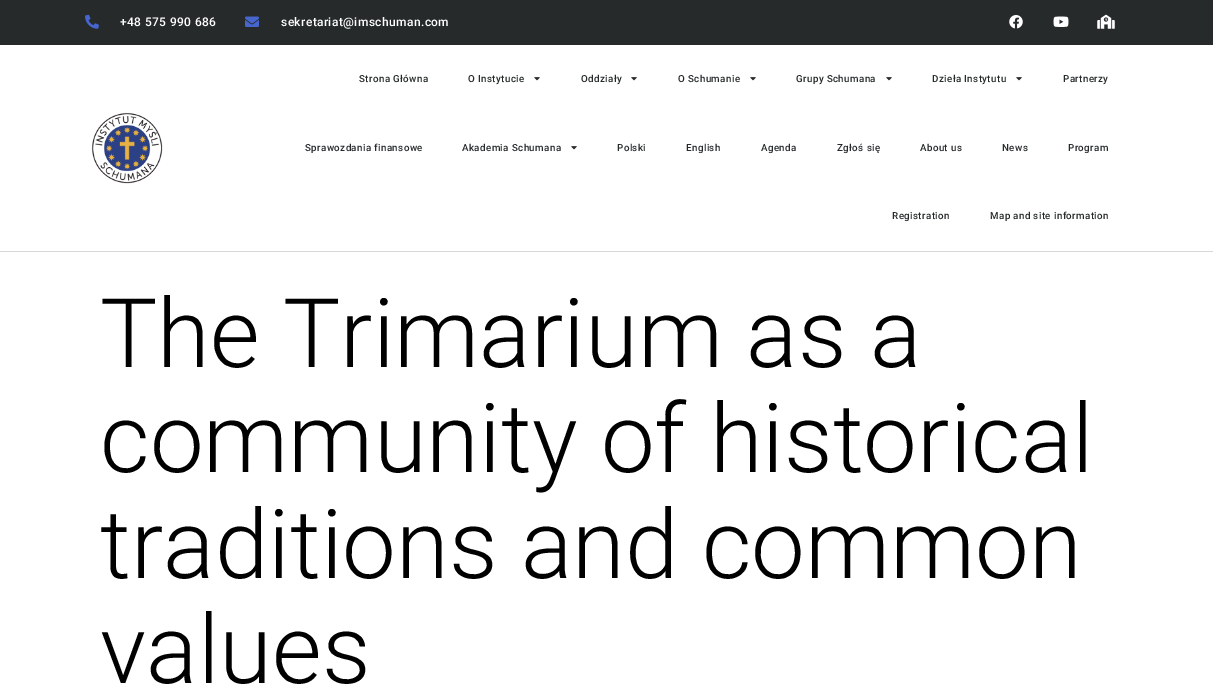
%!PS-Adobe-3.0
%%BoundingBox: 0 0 1213 684
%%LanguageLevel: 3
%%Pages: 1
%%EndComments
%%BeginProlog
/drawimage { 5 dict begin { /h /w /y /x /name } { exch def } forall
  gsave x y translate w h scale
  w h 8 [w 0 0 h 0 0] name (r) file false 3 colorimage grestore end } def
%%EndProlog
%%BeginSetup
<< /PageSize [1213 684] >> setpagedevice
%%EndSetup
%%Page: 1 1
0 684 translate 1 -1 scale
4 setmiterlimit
1 setgray
0 0 1213 684 rectfill
0.149 0.165 0.169 setrgbcolor
0 0 1213 45 rectfill
(images/1.raw) 85 14 14 15 drawimage
(images/2.raw) 245 16 14 11 drawimage
(images/3.raw) 1009 15 14 14 drawimage
(images/4.raw) 1053 16 16 11 drawimage
(images/5.raw) 1097 14 18 15 drawimage
0.847 setgray
0 251 1213 1 rectfill
(images/6.raw) 91 112 72 72 drawimage
(images/7.raw) 534 77 6 4 drawimage
(images/7.raw) 631 77 6 4 drawimage
(images/7.raw) 750 77 6 4 drawimage
(images/7.raw) 886 77 6 4 drawimage
(images/7.raw) 1016 77 6 4 drawimage
(images/7.raw) 571 146 6 4 drawimage
/Roboto-Medium [12 0 0 -12 0 0] selectfont
1 setgray
120 26 moveto 0.4 0 (+48 575 990 686) ashow
281 26 moveto 0.4 0 (sekretariat@imschuman.com) ashow
/Roboto-Medium [9.75 0 0 -9.75 0 0] selectfont
0.149 0.165 0.169 setrgbcolor
359 82 moveto 0.4 0 (Strona Główna) ashow
468 82 moveto 0.4 0 (O Instytucie) ashow
581 82 moveto 0.4 0 (Oddziały) ashow
678 82 moveto 0.4 0 (O Schumanie) ashow
796 82 moveto 0.4 0 (Grupy Schumana) ashow
932 82 moveto 0.4 0 (Dzieła Instytutu) ashow
1063 82 moveto 0.4 0 (Partnerzy) ashow
305 151 moveto 0.4 0 (Sprawozdania finansowe) ashow
462 151 moveto 0.4 0 (Akademia Schumana) ashow
617 151 moveto 0.4 0 (Polski) ashow
686 151 moveto 0.4 0 (English) ashow
761 151 moveto 0.4 0 (Agenda) ashow
837 151 moveto 0.4 0 (Zgłoś się) ashow
920 151 moveto 0.4 0 (About us) ashow
1002 151 moveto 0.4 0 (News) ashow
1068 151 moveto 0.4 0 (Program) ashow
892 219 moveto 0.4 0 (Registration) ashow
990 219 moveto 0.4 0 (Map and site information) ashow
/Roboto-Light [96 0 0 -96 0 0] selectfont
0 setgray
100 367 moveto (The Trimarium as a) show
100 472 moveto (community of historical) show
100 578 moveto (traditions and common) show
100 683 moveto (values) show
showpage
%%EOF
